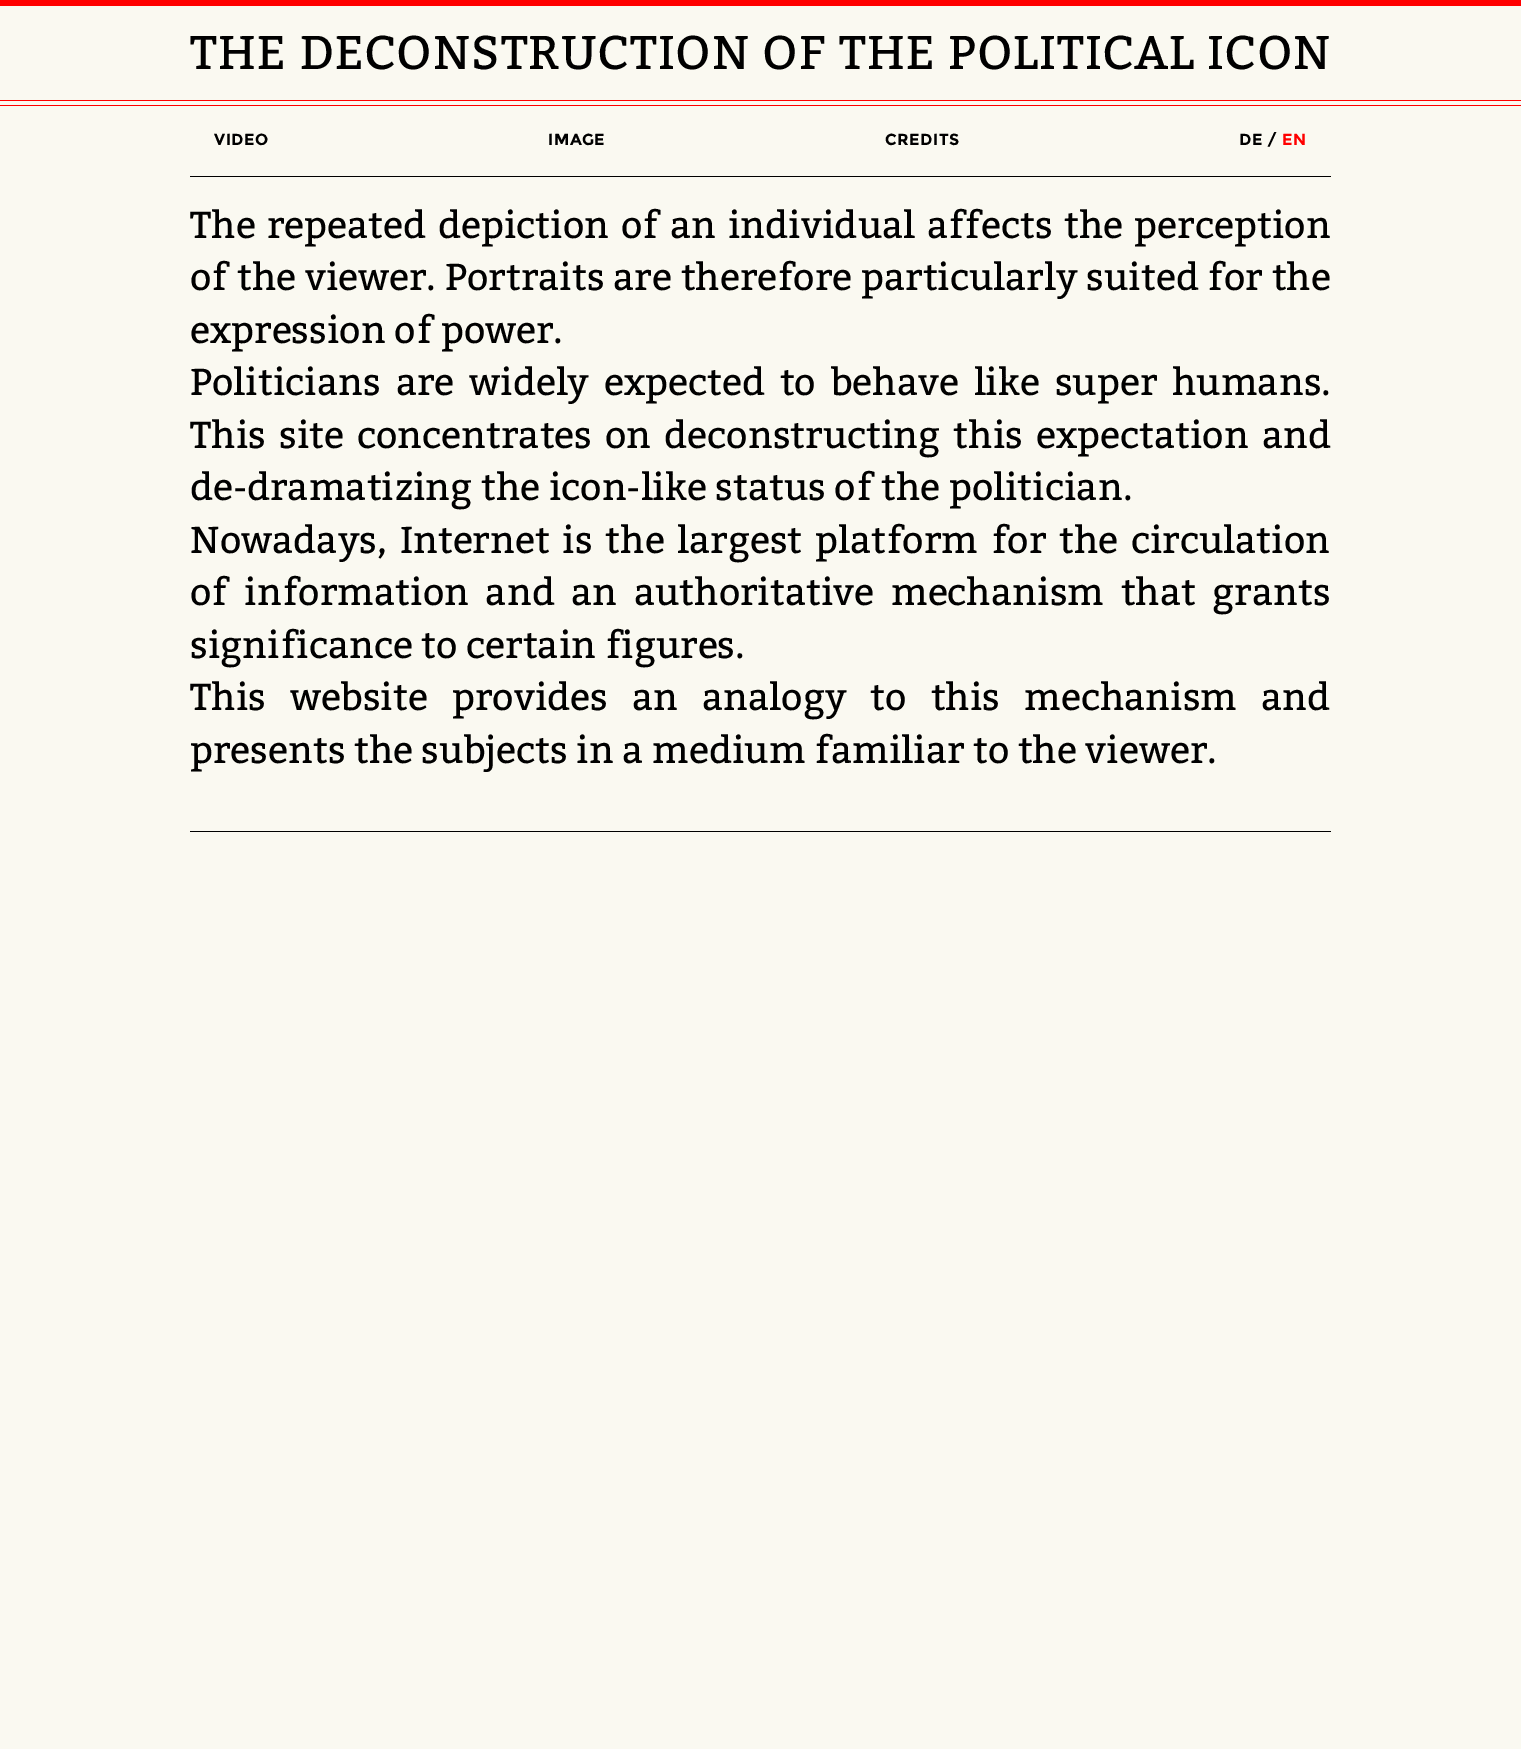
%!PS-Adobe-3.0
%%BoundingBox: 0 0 1521 1749
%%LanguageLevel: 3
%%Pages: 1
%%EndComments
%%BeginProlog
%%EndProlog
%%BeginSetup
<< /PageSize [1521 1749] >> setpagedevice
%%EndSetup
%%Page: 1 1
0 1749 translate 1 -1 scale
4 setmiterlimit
0.98 0.976 0.945 setrgbcolor
0 0 1521 1749 rectfill
1 0 0 setrgbcolor
0 0 1521 6 rectfill
0 100 1521 1 rectfill
0 105 1521 1 rectfill
0 setgray
190 176 1141 1 rectfill
190 831 1141 1 rectfill
/Bitter-Regular [47.3 0 0 -47.3 0 0] selectfont
190 69 moveto 1 0 (THE DECONSTRUCTION OF THE POLITICAL ICON) ashow
/Montserrat-Bold [16 0 0 -16 0 0] selectfont
214 145 moveto 0.5 0 (VIDEO) ashow
548 145 moveto 0.5 0 (IMAGE) ashow
885 145 moveto 0.5 0 (CREDITS) ashow
1239 145 moveto 0.5 0 (DE /) ashow
1 0 0 setrgbcolor
1282 145 moveto 0.5 0 (EN) ashow
/Bitter-Regular [37.5 0 0 -37.5 0 0] selectfont
0 setgray
190 238 moveto 3 0 32 (The repeated depiction of an individual affects the perception) widthshow
190 290 moveto 0.25 0 32 (of the viewer. Portraits are therefore particularly suited for the) widthshow
190 343 moveto (expression of power.) show
190 395 moveto 6.25 0 32 (Politicians are widely expected to behave like super humans.) widthshow
190 448 moveto 4.5 0 32 (This site concentrates on deconstructing this expectation and) widthshow
190 500 moveto (de-dramatizing the icon-like status of the politician.) show
190 553 moveto 4.25 0 32 (Nowadays, Internet is the largest platform for the circulation) widthshow
190 605 moveto 8 0 32 (of information and an authoritative mechanism that grants) widthshow
190 658 moveto (significance to certain figures.) show
190 710 moveto 15.5 0 32 (This website provides an analogy to this mechanism and) widthshow
190 763 moveto (presents the subjects in a medium familiar to the viewer.) show
showpage
%%EOF
